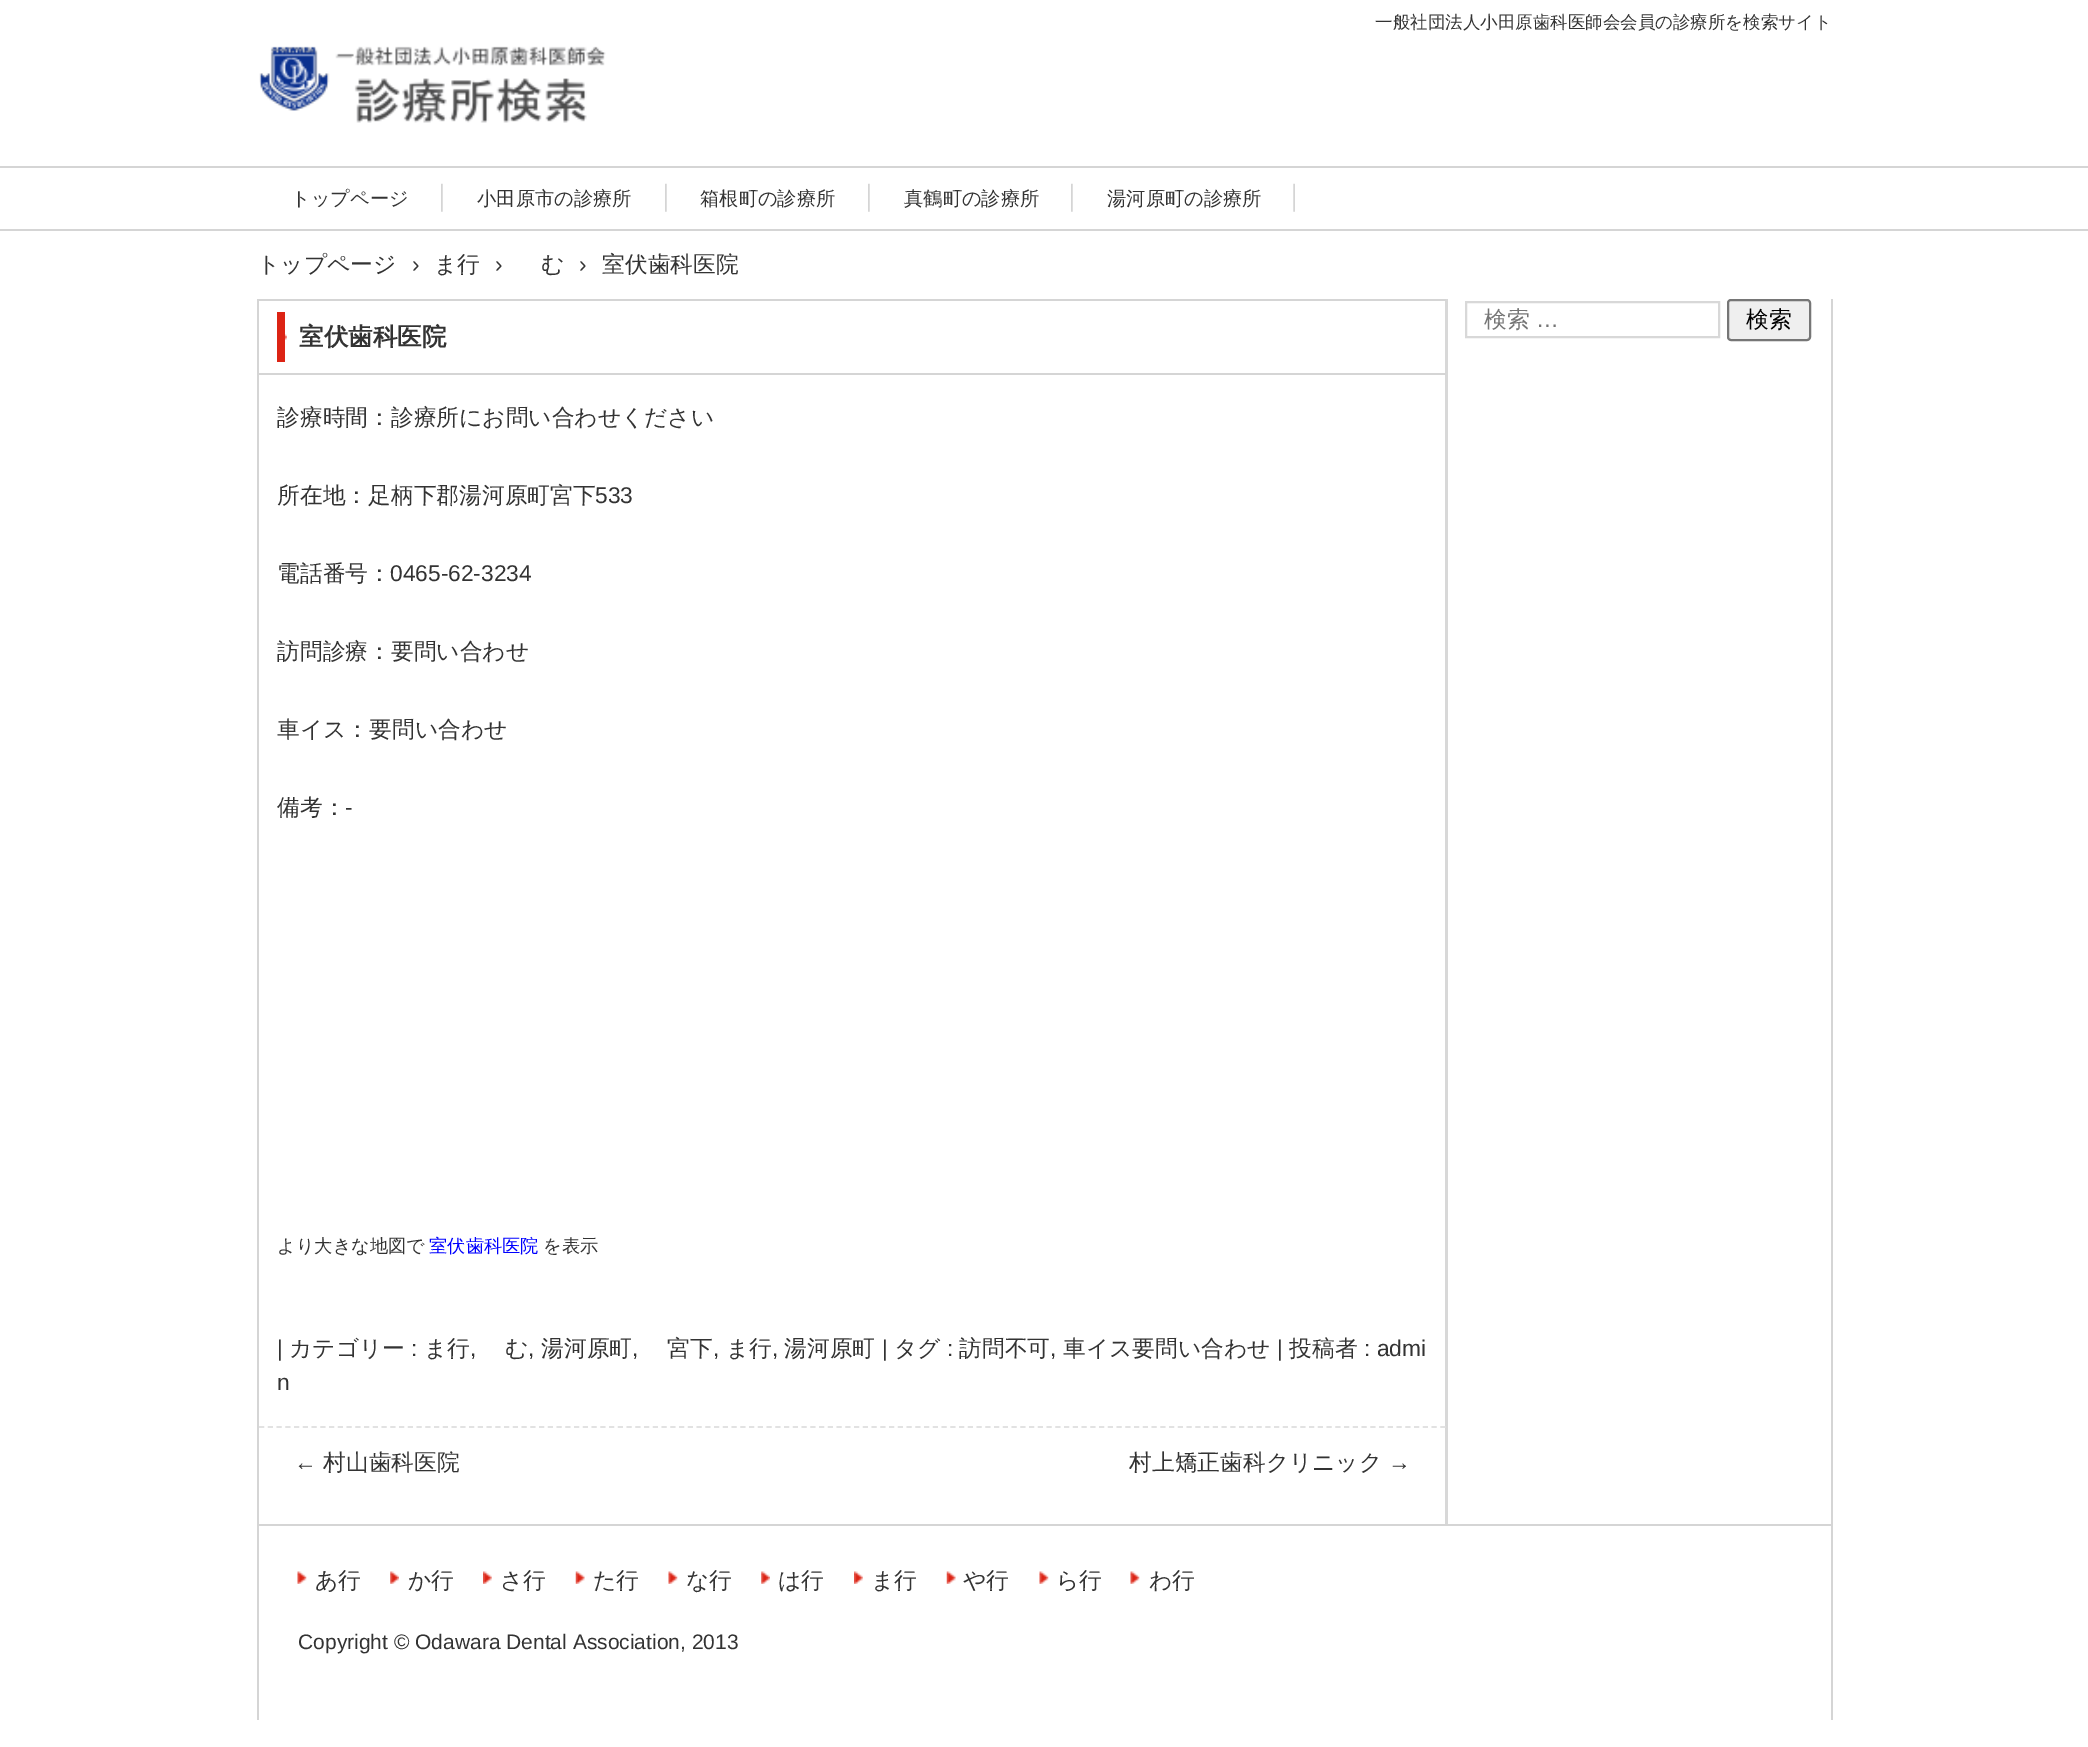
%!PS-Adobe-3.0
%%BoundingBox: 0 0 2088 1747
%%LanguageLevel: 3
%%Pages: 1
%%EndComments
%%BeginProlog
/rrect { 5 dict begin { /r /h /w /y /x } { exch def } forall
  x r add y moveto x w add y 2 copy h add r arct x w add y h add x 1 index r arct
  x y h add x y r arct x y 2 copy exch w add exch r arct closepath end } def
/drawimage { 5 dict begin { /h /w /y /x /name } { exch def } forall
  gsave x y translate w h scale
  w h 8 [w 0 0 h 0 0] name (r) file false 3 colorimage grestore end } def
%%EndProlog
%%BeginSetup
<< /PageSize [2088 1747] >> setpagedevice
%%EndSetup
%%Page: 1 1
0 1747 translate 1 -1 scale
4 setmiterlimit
1 setgray
0 0 2088 1747 rectfill
(images/1.raw) 259 46 347 77 drawimage
0.835 setgray
0 166 2088 2 rectfill
0 229 2088 2 rectfill
(images/2.raw) 441 183 2 29 drawimage
(images/2.raw) 665 183 2 29 drawimage
(images/2.raw) 868 183 2 29 drawimage
(images/2.raw) 1071 183 2 29 drawimage
(images/3.raw) 1293 183 2 29 drawimage
0.847 setgray
1445 299 3 1227 rectfill
0.835 setgray
1831 299 2 1421 rectfill
257 1524 1575 2 rectfill
257 299 2 1421 rectfill
0.847 setgray
2 setlinewidth
1466 302 253 35 rectstroke
0.937 setgray
1728 300 82 40 3 rrect gsave fill grestore
0.463 setgray
stroke
(images/4.raw) 285 334 2 6 drawimage
0.835 setgray
259 299 1187 2 rectfill
259 373 1187 2 rectfill
0.863 0.137 0.078 setrgbcolor
277 312 8 50 rectfill
0.886 setgray
1.8 setlinewidth
[5.25 3.5] 0 setdash
newpath 259 1427 moveto 1445.5 1427 lineto stroke
(images/5.raw) 297 1571 10 13 drawimage
(images/6.raw) 390 1571 9 13 drawimage
(images/7.raw) 483 1571 9 13 drawimage
(images/8.raw) 575 1571 10 13 drawimage
(images/9.raw) 668 1571 10 13 drawimage
(images/6.raw) 761 1571 9 13 drawimage
(images/10.raw) 854 1571 9 13 drawimage
(images/8.raw) 946 1571 10 13 drawimage
(images/9.raw) 1039 1571 10 13 drawimage
(images/5.raw) 1130 1571 10 13 drawimage
/WenQuanYiZenHei-Medium [17.5 0 0 -17.5 0 0] selectfont
0.2 setgray
1375 28 moveto (一般社団法人小田原歯科医師会会員の診療所を検索サイト) show
/WenQuanYiZenHei-Medium [19.25 0 0 -19.25 0 0] selectfont
291 205 moveto (トップページ) show
477 205 moveto (小田原市の診療所) show
700 205 moveto (箱根町の診療所) show
904 205 moveto (真鶴町の診療所) show
1107 205 moveto (湯河原町の診療所) show
/WenQuanYiZenHei-Medium [22.75 0 0 -22.75 0 0] selectfont
257 272 moveto (トップページ) show
/LiberationSans-Regular [22.75 0 0 -22.75 0 0] selectfont
412 272 moveto (›) show
/WenQuanYiZenHei-Medium [22.75 0 0 -22.75 0 0] selectfont
434 272 moveto (ま行) show
/LiberationSans-Regular [22.75 0 0 -22.75 0 0] selectfont
495 272 moveto (›) show
/WenQuanYiZenHei-Medium [22.75 0 0 -22.75 0 0] selectfont
541 272 moveto (む) show
/LiberationSans-Regular [22.75 0 0 -22.75 0 0] selectfont
579 272 moveto (›) show
/WenQuanYiZenHei-Medium [22.75 0 0 -22.75 0 0] selectfont
602 272 moveto (室伏歯科医院) show
0.459 setgray
1484 327 moveto (検索) show
/LiberationSans-Regular [22.75 0 0 -22.75 0 0] selectfont
1536 327 moveto (…) show
/WenQuanYiZenHei-Medium [22.75 0 0 -22.75 0 0] selectfont
0 setgray
1746 327 moveto (検索) show
/WenQuanYiZenHei-Bold [24.5 0 0 -24.5 0 0] selectfont
0.2 setgray
299 345 moveto (室伏歯科医院) show
/WenQuanYiZenHei-Medium [22.75 0 0 -22.75 0 0] selectfont
277 425 moveto (診療時間：診療所にお問い合わせください) show
277 503 moveto (所在地：足柄下郡湯河原町宮下) show
/LiberationSans-Regular [22.75 0 0 -22.75 0 0] selectfont
595 503 moveto (533) show
/WenQuanYiZenHei-Medium [22.75 0 0 -22.75 0 0] selectfont
277 581 moveto (電話番号：) show
/LiberationSans-Regular [22.75 0 0 -22.75 0 0] selectfont
390 581 moveto (0465-62-3234) show
/WenQuanYiZenHei-Medium [22.75 0 0 -22.75 0 0] selectfont
277 659 moveto (訪問診療：要問い合わせ) show
277 737 moveto (車イス：要問い合わせ) show
277 815 moveto (備考：) show
/LiberationSans-Regular [22.75 0 0 -22.75 0 0] selectfont
345 815 moveto (-) show
/WenQuanYiZenHei-Medium [18.25 0 0 -18.25 0 0] selectfont
277 1252 moveto (より大きな地図で) show
0 0 1 setrgbcolor
429 1252 moveto (室伏歯科医院) show
0.2 setgray
543 1252 moveto (を表示) show
/LiberationSans-Regular [22.75 0 0 -22.75 0 0] selectfont
277 1356 moveto (|) show
/WenQuanYiZenHei-Medium [22.75 0 0 -22.75 0 0] selectfont
289 1356 moveto (カテゴリー) show
/LiberationSans-Regular [22.75 0 0 -22.75 0 0] selectfont
411 1356 moveto (:) show
/WenQuanYiZenHei-Medium [22.75 0 0 -22.75 0 0] selectfont
424 1356 moveto (ま行) show
/LiberationSans-Regular [22.75 0 0 -22.75 0 0] selectfont
470 1356 moveto (,) show
/WenQuanYiZenHei-Medium [22.75 0 0 -22.75 0 0] selectfont
505 1356 moveto (む) show
/LiberationSans-Regular [22.75 0 0 -22.75 0 0] selectfont
528 1356 moveto (,) show
/WenQuanYiZenHei-Medium [22.75 0 0 -22.75 0 0] selectfont
541 1356 moveto (湯河原町) show
/LiberationSans-Regular [22.75 0 0 -22.75 0 0] selectfont
632 1356 moveto (,) show
/WenQuanYiZenHei-Medium [22.75 0 0 -22.75 0 0] selectfont
667 1356 moveto (宮下) show
/LiberationSans-Regular [22.75 0 0 -22.75 0 0] selectfont
713 1356 moveto (,) show
/WenQuanYiZenHei-Medium [22.75 0 0 -22.75 0 0] selectfont
726 1356 moveto (ま行) show
/LiberationSans-Regular [22.75 0 0 -22.75 0 0] selectfont
772 1356 moveto (,) show
/WenQuanYiZenHei-Medium [22.75 0 0 -22.75 0 0] selectfont
784 1356 moveto (湯河原町) show
/LiberationSans-Regular [22.75 0 0 -22.75 0 0] selectfont
882 1356 moveto (|) show
/WenQuanYiZenHei-Medium [22.75 0 0 -22.75 0 0] selectfont
894 1356 moveto (タグ) show
/LiberationSans-Regular [22.75 0 0 -22.75 0 0] selectfont
947 1356 moveto (:) show
/WenQuanYiZenHei-Medium [22.75 0 0 -22.75 0 0] selectfont
959 1356 moveto (訪問不可) show
/LiberationSans-Regular [22.75 0 0 -22.75 0 0] selectfont
1050 1356 moveto (,) show
/WenQuanYiZenHei-Medium [22.75 0 0 -22.75 0 0] selectfont
1063 1356 moveto (車イス要問い合わせ) show
/LiberationSans-Regular [22.75 0 0 -22.75 0 0] selectfont
1277 1356 moveto (|) show
/WenQuanYiZenHei-Medium [22.75 0 0 -22.75 0 0] selectfont
1289 1356 moveto (投稿者) show
/LiberationSans-Regular [22.75 0 0 -22.75 0 0] selectfont
1364 1356 moveto (: admi) show
277 1390 moveto (n) show
294 1470 moveto (←) show
/WenQuanYiZenHei-Medium [22.75 0 0 -22.75 0 0] selectfont
323 1470 moveto (村山歯科医院) show
1129 1470 moveto (村上矯正歯科クリニック) show
/LiberationSans-Regular [22.75 0 0 -22.75 0 0] selectfont
1388 1470 moveto (→) show
/WenQuanYiZenHei-Medium [22.75 0 0 -22.75 0 0] selectfont
315 1588 moveto (あ行) show
408 1588 moveto (か行) show
500 1588 moveto (さ行) show
593 1588 moveto (た行) show
686 1588 moveto (な行) show
778 1588 moveto (は行) show
871 1588 moveto (ま行) show
963 1588 moveto (や行) show
1056 1588 moveto (ら行) show
1149 1588 moveto (わ行) show
/LiberationSans-Regular [21 0 0 -21 0 0] selectfont
298 1649 moveto (Copyright © Odawara Dental Association, 2013) show
showpage
%%EOF
